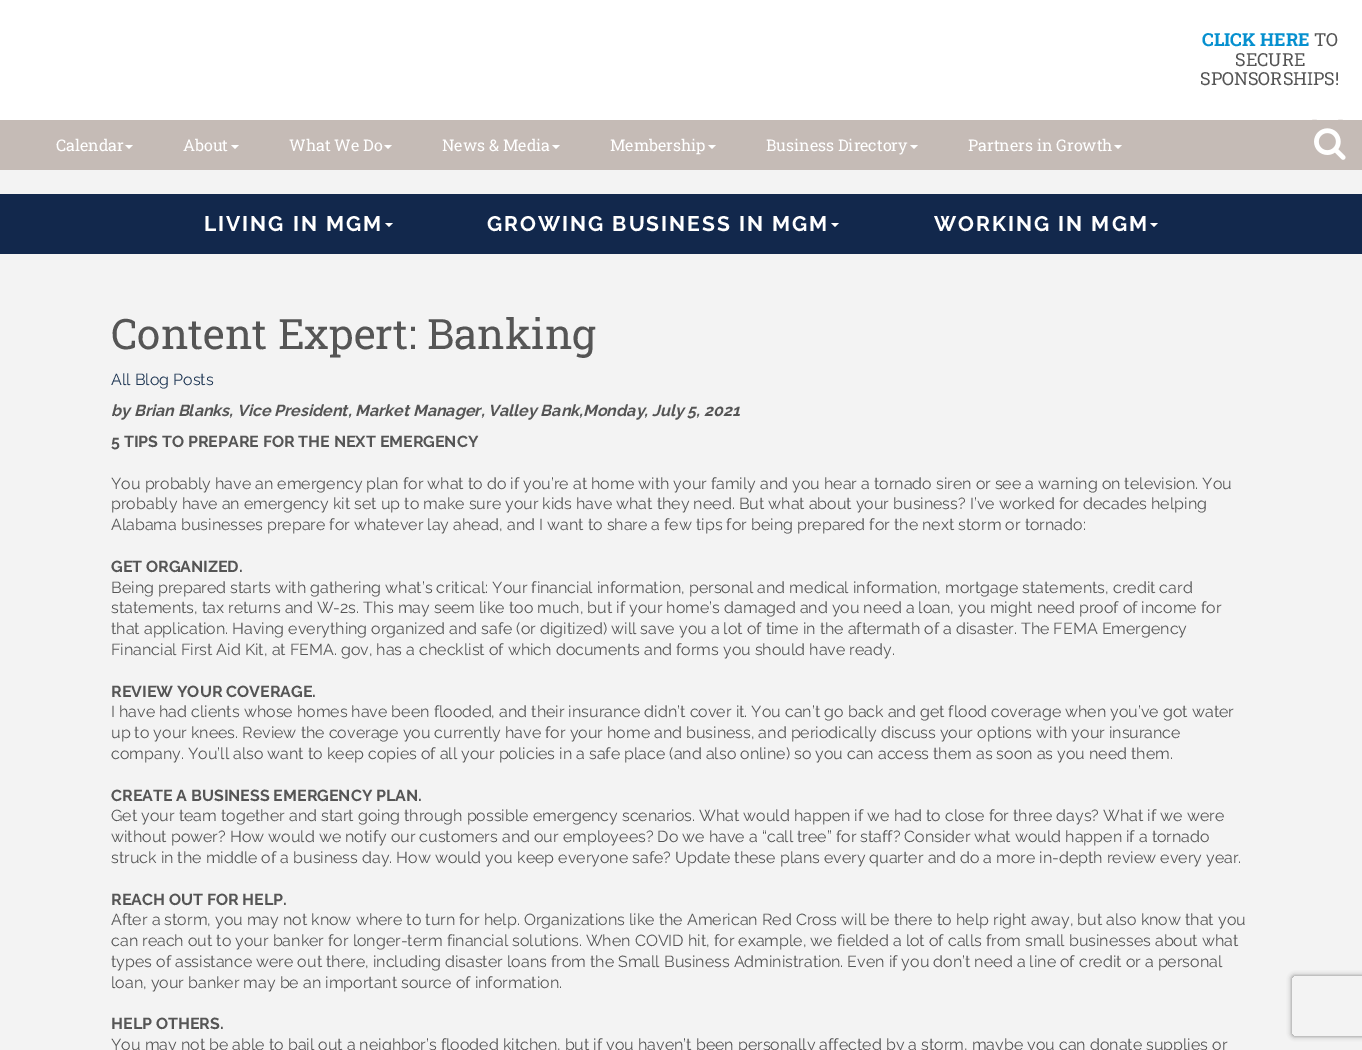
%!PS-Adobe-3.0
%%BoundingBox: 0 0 1362 1050
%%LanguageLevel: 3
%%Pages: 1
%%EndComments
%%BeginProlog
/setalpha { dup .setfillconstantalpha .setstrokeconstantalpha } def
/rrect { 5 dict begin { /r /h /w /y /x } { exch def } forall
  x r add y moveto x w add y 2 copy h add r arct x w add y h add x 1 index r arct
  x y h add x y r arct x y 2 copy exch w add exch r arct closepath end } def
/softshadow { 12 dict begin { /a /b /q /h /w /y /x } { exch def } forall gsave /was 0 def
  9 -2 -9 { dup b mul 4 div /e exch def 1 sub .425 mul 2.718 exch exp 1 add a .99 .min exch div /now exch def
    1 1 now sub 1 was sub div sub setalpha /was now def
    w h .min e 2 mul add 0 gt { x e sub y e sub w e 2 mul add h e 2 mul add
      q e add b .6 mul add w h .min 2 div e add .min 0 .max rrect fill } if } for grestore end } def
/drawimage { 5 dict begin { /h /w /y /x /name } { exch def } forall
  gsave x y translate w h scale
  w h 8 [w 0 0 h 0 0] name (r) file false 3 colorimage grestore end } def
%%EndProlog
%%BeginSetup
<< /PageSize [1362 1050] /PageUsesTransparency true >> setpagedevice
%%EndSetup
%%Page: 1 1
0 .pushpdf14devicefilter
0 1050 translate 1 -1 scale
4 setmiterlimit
0.953 setgray
0 0 1362 1050 rectfill
1 setgray
0 0 1362 120 rectfill
0.773 0.733 0.714 setrgbcolor
0 120 1362 50 rectfill
1 setgray
newpath 125 145 moveto 133 145 lineto 129 149 lineto closepath fill
newpath 231 145 moveto 239 145 lineto 235 149 lineto closepath fill
newpath 384 145 moveto 392 145 lineto 388 149 lineto closepath fill
newpath 552 145 moveto 560 145 lineto 556 149 lineto closepath fill
newpath 708 145 moveto 716 145 lineto 712 149 lineto closepath fill
newpath 910 145 moveto 918 145 lineto 914 149 lineto closepath fill
newpath 1114 145 moveto 1122 145 lineto 1118 149 lineto closepath fill
0.773 0.733 0.714 setrgbcolor
newpath 1312 121 moveto 1343 121 lineto 1345 121 1346 122 1346 124 curveto 1346 119 1342 120 1338 120 curveto 1317 120 lineto 1313 120 1309 119 1309 124 curveto 1309 122 1310 121 1312 121 curveto closepath fill
(images/1.raw) 1314 128 32 32 drawimage
0.071 0.157 0.298 setrgbcolor
0 194 1362 60 rectfill
1 setgray
newpath 385 223 moveto 393 223 lineto 389 227 lineto closepath fill
newpath 831 223 moveto 839 223 lineto 835 227 lineto closepath fill
newpath 1150 223 moveto 1158 223 lineto 1154 227 lineto closepath fill
gsave
newpath 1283 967 moveto 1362 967 lineto 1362 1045 lineto 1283 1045 lineto closepath 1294 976 moveto 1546 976 lineto 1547 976 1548 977 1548 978 curveto 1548 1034 lineto 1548 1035 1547 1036 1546 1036 curveto 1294 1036 lineto 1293 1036 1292 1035 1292 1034 curveto 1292 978 lineto 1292 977 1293 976 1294 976 curveto closepath eoclip newpath
0.502 setgray
1292 976 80 60 2 2.5 1 softshadow
grestore
/RobotoSlab-Bold [18 0 0 -18 0 0] selectfont
0.024 0.565 0.812 setrgbcolor
1202 46 moveto (CLICK HERE) show
/RobotoSlab-Regular [18 0 0 -18 0 0] selectfont
0.333 setgray
1314 46 moveto (TO) show
1235 66 moveto (SECURE) show
1200 85 moveto (SPONSORSHIPS!) show
/RobotoSlab-Regular [16 0 0 -16 0 0] selectfont
1 setgray
56 151 moveto (Calendar) show
183 151 moveto (About) show
289 151 moveto (What We Do) show
442 151 moveto (News & Media) show
610 151 moveto (Membership) show
766 151 moveto (Business Directory) show
968 151 moveto (Partners in Growth) show
/Raleway-Bold [21 0 0 -21 0 0] selectfont
204 231 moveto 2 0 (LIVING IN MGM) ashow
487 231 moveto 2 0 (GROWING BUSINESS IN MGM) ashow
934 231 moveto 2 0 (WORKING IN MGM) ashow
/RobotoSlab-Regular [42 0 0 -42 0 0] selectfont
0.333 setgray
111 349 moveto (Content Expert: Banking) show
/Raleway-Regular [16 0 0 -16 0 0] selectfont
0.118 0.212 0.325 setrgbcolor
111 385 moveto (All Blog Posts) show
/Raleway-BoldItalic [16 0 0 -16 0 0] selectfont
0.333 setgray
111 416 moveto (by Brian Blanks, Vice President, Market Manager, Valley Bank,Monday, July 5, 2021) show
/Raleway-Bold [16 0 0 -16 0 0] selectfont
111 447 moveto (5 TIPS TO PREPARE FOR THE NEXT EMERGENCY) show
/Raleway-Regular [16 0 0 -16 0 0] selectfont
111 489 moveto (You probably have an emergency plan for what to do if you’re at home with your family and you hear a tornado siren or see a warning on television. You) show
111 509 moveto (probably have an emergency kit set up to make sure your kids have what they need. But what about your business? I’ve worked for decades helping) show
111 530 moveto (Alabama businesses prepare for whatever lay ahead, and I want to share a few tips for being prepared for the next storm or tornado:) show
/Raleway-Bold [16 0 0 -16 0 0] selectfont
111 572 moveto (GET ORGANIZED.) show
/Raleway-Regular [16 0 0 -16 0 0] selectfont
111 593 moveto (Being prepared starts with gathering what’s critical: Your financial information, personal and medical information, mortgage statements, credit card) show
111 613 moveto (statements, tax returns and W-2s. This may seem like too much, but if your home’s damaged and you need a loan, you might need proof of income for) show
111 634 moveto (that application. Having everything organized and safe \(or digitized\) will save you a lot of time in the aftermath of a disaster. The FEMA Emergency) show
111 655 moveto (Financial First Aid Kit, at FEMA. gov, has a checklist of which documents and forms you should have ready.) show
/Raleway-Bold [16 0 0 -16 0 0] selectfont
111 697 moveto (REVIEW YOUR COVERAGE.) show
/Raleway-Regular [16 0 0 -16 0 0] selectfont
111 717 moveto (I have had clients whose homes have been flooded, and their insurance didn’t cover it. You can’t go back and get flood coverage when you’ve got water) show
111 738 moveto (up to your knees. Review the coverage you currently have for your home and business, and periodically discuss your options with your insurance) show
111 759 moveto (company. You’ll also want to keep copies of all your policies in a safe place \(and also online\) so you can access them as soon as you need them.) show
/Raleway-Bold [16 0 0 -16 0 0] selectfont
111 801 moveto (CREATE A BUSINESS EMERGENCY PLAN.) show
/Raleway-Regular [16 0 0 -16 0 0] selectfont
111 821 moveto (Get your team together and start going through possible emergency scenarios. What would happen if we had to close for three days? What if we were) show
111 842 moveto (without power? How would we notify our customers and our employees? Do we have a “call tree” for staff? Consider what would happen if a tornado) show
111 863 moveto (struck in the middle of a business day. How would you keep everyone safe? Update these plans every quarter and do a more in-depth review every year.) show
/Raleway-Bold [16 0 0 -16 0 0] selectfont
111 905 moveto (REACH OUT FOR HELP.) show
/Raleway-Regular [16 0 0 -16 0 0] selectfont
111 925 moveto (After a storm, you may not know where to turn for help. Organizations like the American Red Cross will be there to help right away, but also know that you) show
111 946 moveto (can reach out to your banker for longer-term financial solutions. When COVID hit, for example, we fielded a lot of calls from small businesses about what) show
111 967 moveto (types of assistance were out there, including disaster loans from the Small Business Administration. Even if you don’t need a line of credit or a personal) show
111 988 moveto (loan, your banker may be an important source of information.) show
/Raleway-Bold [16 0 0 -16 0 0] selectfont
111 1029 moveto (HELP OTHERS.) show
/Raleway-Regular [16 0 0 -16 0 0] selectfont
111 1050 moveto (You may not be able to bail out a neighbor’s flooded kitchen, but if you haven’t been personally affected by a storm, maybe you can donate supplies or) show
.poppdf14devicefilter showpage
%%EOF
